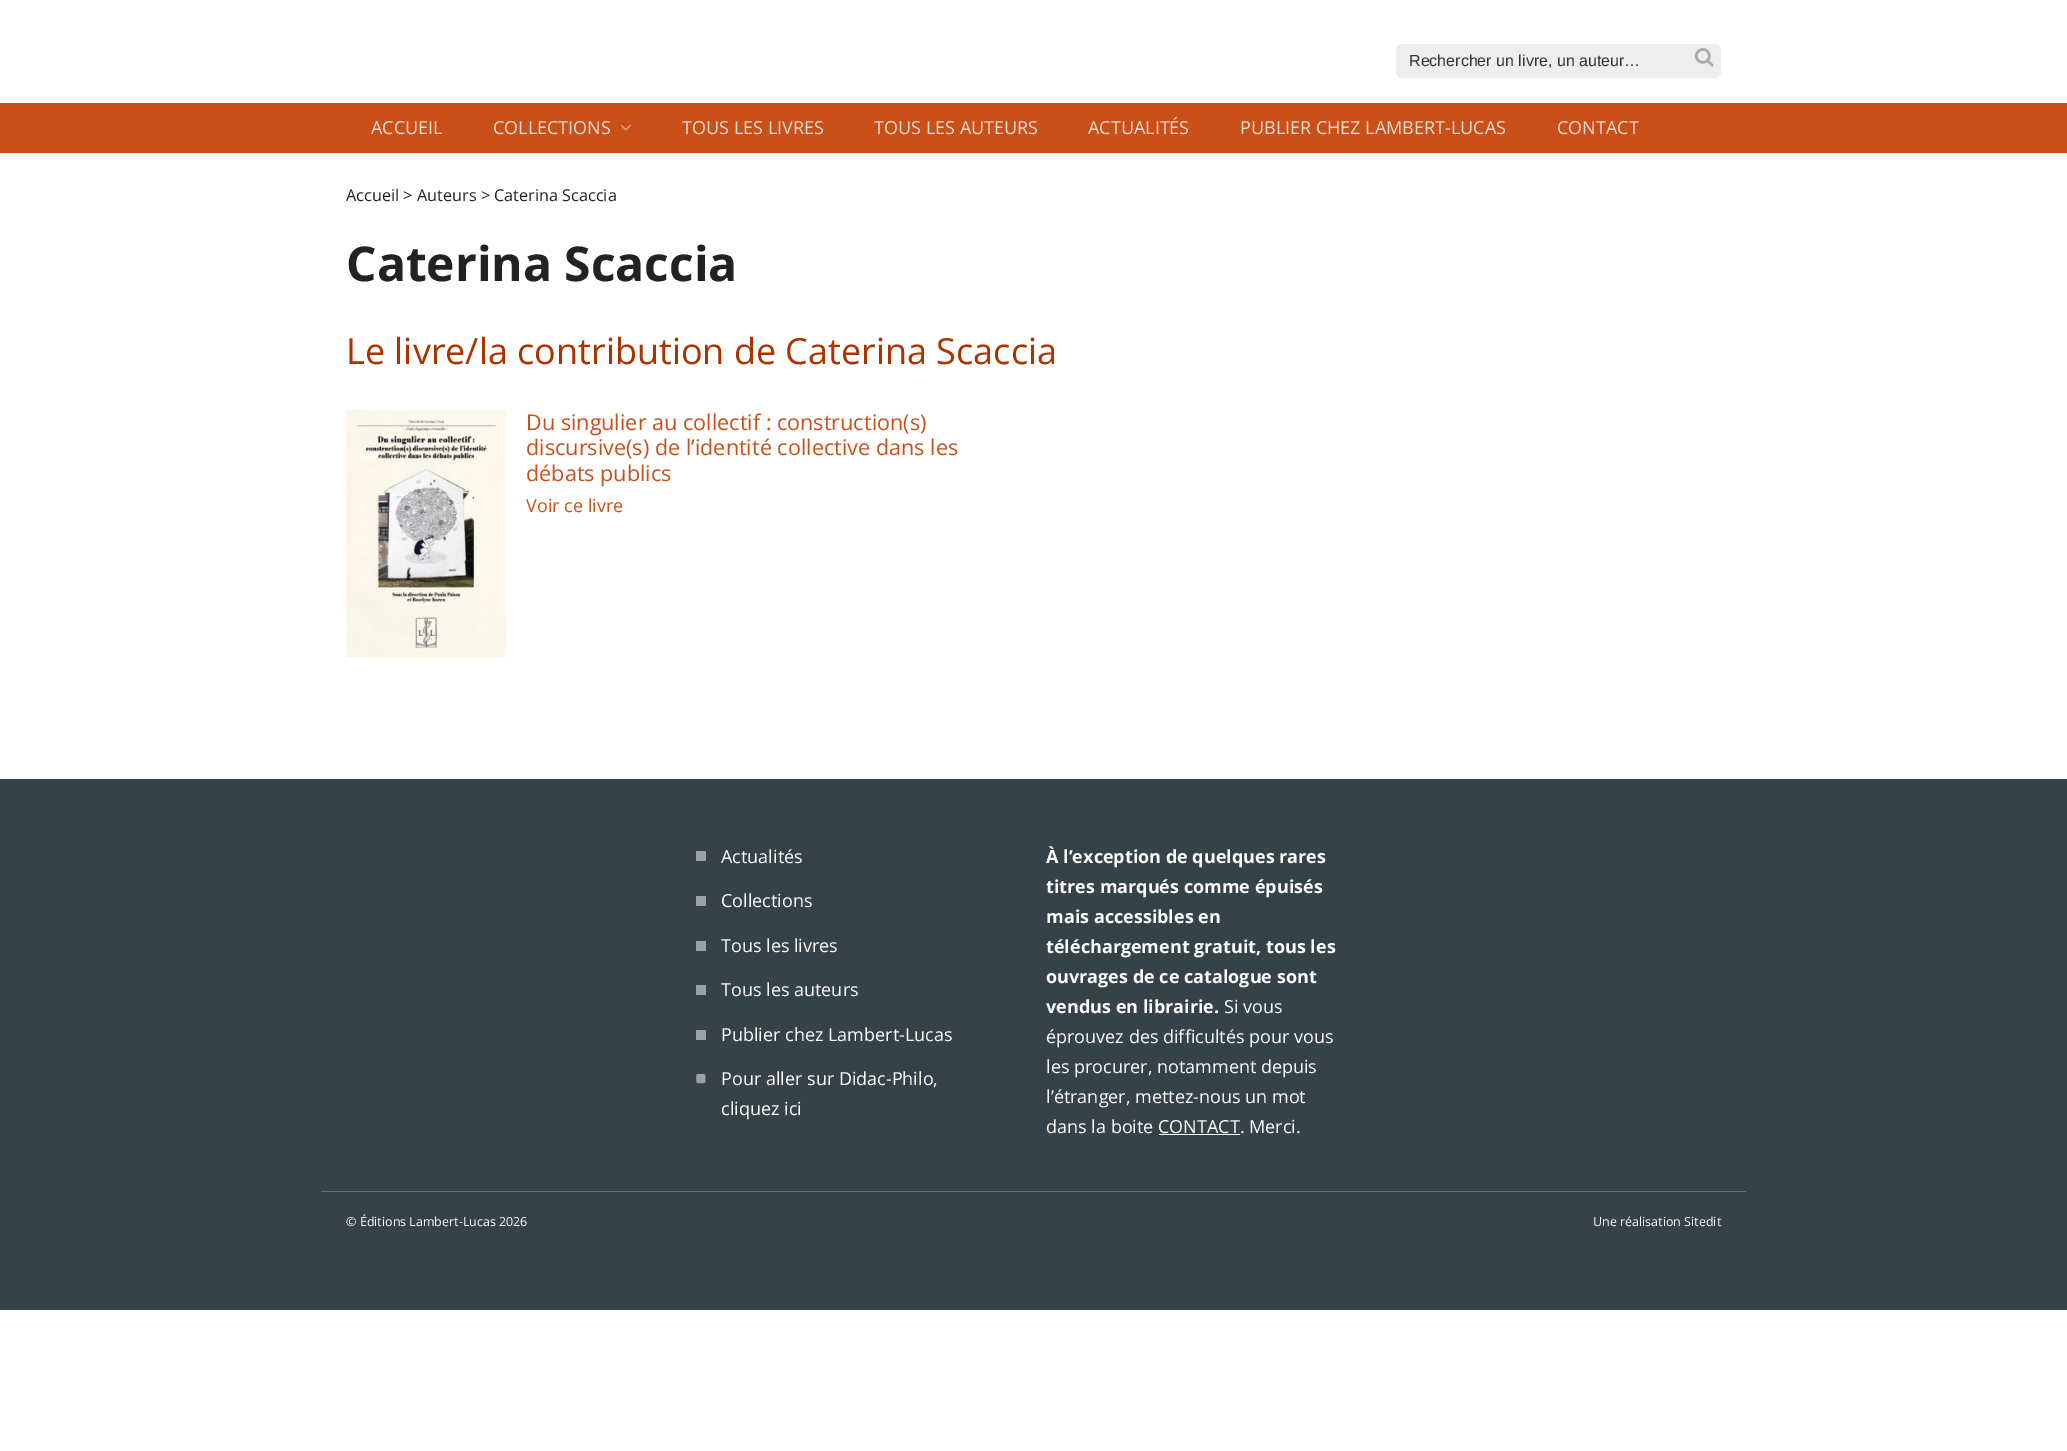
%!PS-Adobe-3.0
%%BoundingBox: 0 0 2067 1451
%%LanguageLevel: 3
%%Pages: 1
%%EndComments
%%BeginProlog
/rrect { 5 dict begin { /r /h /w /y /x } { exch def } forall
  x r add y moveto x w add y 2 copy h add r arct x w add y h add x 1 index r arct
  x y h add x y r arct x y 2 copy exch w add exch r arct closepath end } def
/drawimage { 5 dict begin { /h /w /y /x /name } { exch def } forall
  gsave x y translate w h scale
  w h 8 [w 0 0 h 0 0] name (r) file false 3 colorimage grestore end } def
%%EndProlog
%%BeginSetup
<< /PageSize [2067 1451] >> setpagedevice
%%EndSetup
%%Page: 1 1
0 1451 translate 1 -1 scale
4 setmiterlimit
1 setgray
0 0 2067 1451 rectfill
0.933 setgray
1396 44 325 34 6 rrect fill
(images/1.raw) 1695 48 19 19 drawimage
0.792 0.314 0.102 setrgbcolor
0 103 2067 50 rectfill
(images/2.raw) 620 124 11 7 drawimage
(images/3.raw) 346 410 161 248 drawimage
0.208 0.259 0.282 setrgbcolor
0 779 2067 531 rectfill
0.604 0.631 0.643 setrgbcolor
696 851 10 10 rectfill
696 896 10 10 rectfill
696 941 10 10 rectfill
696 985 10 10 rectfill
696 1030 10 10 rectfill
(images/4.raw) 696 1074 10 10 drawimage
1 setgray
1159 1134 81 1 rectfill
0.408 0.443 0.463 setrgbcolor
321 1191 1425 1 rectfill
/LiberationSans-Regular [16 0 0 -16 0 0] selectfont
0.2 setgray
1409 66 moveto (Rechercher un livre, un auteur…) show
/OpenSans-Regular [18 0 0 -18 0 0] selectfont
0.957 0.863 0.82 setrgbcolor
371 134 moveto (ACCUEIL) show
493 134 moveto (COLLECTIONS) show
682 134 moveto (TOUS LES LIVRES) show
874 134 moveto (TOUS LES AUTEURS) show
1088 134 moveto (ACTUALITÉS) show
1240 134 moveto (PUBLIER CHEZ LAMBERT-LUCAS) show
1557 134 moveto (CONTACT) show
/OpenSans-Regular [16.25 0 0 -16.25 0 0] selectfont
0.133 setgray
346 201 moveto (Accueil > Auteurs > Caterina Scaccia) show
/OpenSans-Bold [48 0 0 -48 0 0] selectfont
346 281 moveto (Caterina Scaccia) show
/OpenSans-Regular [36 0 0 -36 0 0] selectfont
0.675 0.196 0 setrgbcolor
346 364 moveto (Le livre/la contribution de Caterina Scaccia) show
/OpenSans-Regular [21.6 0 0 -21.6 0 0] selectfont
0.792 0.314 0.102 setrgbcolor
526 430 moveto (Du singulier au collectif : construction\(s\)) show
526 455 moveto (discursive\(s\) de l’identité collective dans les) show
526 481 moveto (débats publics) show
/OpenSans-Regular [18 0 0 -18 0 0] selectfont
526 512 moveto (Voir ce livre) show
1 setgray
721 863 moveto (Actualités) show
721 907 moveto (Collections) show
721 952 moveto (Tous les livres) show
721 996 moveto (Tous les auteurs) show
721 1041 moveto (Publier chez Lambert-Lucas) show
721 1085 moveto (Pour aller sur Didac-Philo,) show
721 1115 moveto (cliquez ici) show
/OpenSans-Bold [18 0 0 -18 0 0] selectfont
1046 863 moveto (À l’exception de quelques rares) show
1046 893 moveto (titres marqués comme épuisés) show
1046 923 moveto (mais accessibles en) show
1046 953 moveto (téléchargement gratuit, tous les) show
1046 983 moveto (ouvrages de ce catalogue sont) show
1046 1013 moveto (vendus en librairie.) show
/OpenSans-Regular [18 0 0 -18 0 0] selectfont
1224 1013 moveto (Si vous) show
1046 1043 moveto (éprouvez des difficultés pour vous) show
1046 1073 moveto (les procurer, notamment depuis) show
1046 1103 moveto (l’étranger, mettez-nous un mot) show
1046 1133 moveto (dans la boite CONTACT. Merci.) show
/OpenSans-Regular [12.5 0 0 -12.5 0 0] selectfont
346 1226 moveto (© Éditions Lambert-Lucas 2026) show
1593 1226 moveto (Une réalisation Sitedit) show
showpage
%%EOF
